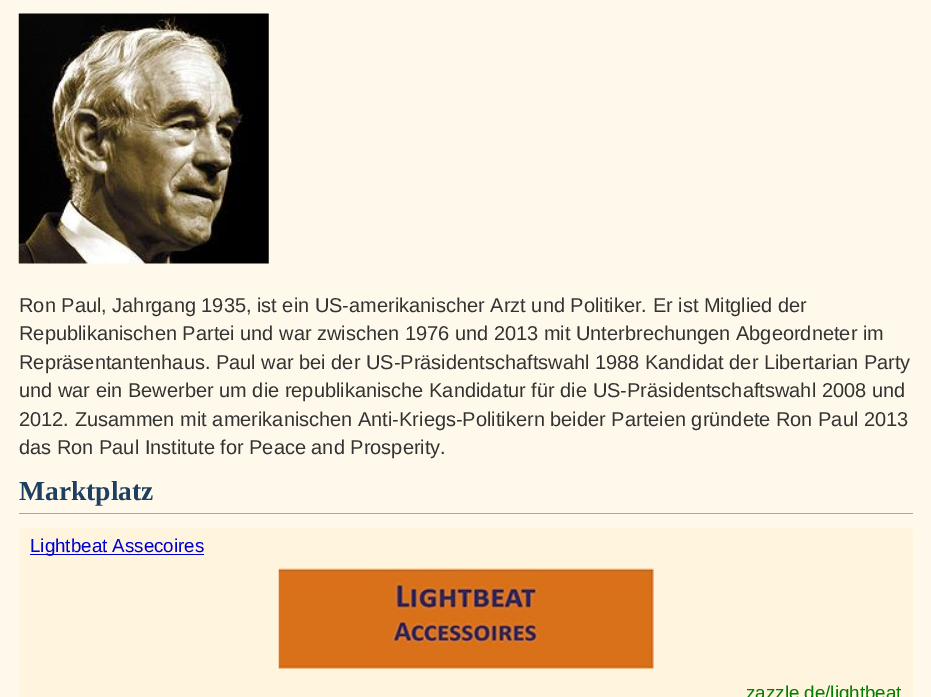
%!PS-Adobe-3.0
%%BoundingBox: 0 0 931 697
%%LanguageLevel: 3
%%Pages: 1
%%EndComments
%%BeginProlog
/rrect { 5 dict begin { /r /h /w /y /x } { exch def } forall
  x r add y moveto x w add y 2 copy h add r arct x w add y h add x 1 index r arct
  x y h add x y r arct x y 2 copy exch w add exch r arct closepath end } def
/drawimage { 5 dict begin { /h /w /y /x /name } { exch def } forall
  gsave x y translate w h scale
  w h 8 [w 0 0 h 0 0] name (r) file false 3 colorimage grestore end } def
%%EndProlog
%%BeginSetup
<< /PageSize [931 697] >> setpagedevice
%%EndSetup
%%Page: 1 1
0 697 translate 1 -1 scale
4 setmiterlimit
1 0.976 0.925 setrgbcolor
0 0 931 697 rectfill
(images/1.raw) 18 13 251 251 drawimage
0.8 0.639 0.322 setrgbcolor
19 513 894 1 rectfill
1 0.957 0.867 setrgbcolor
19 528 894 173 4 rrect fill
0 0 0.8 setrgbcolor
30 554 174 1 rectfill
(images/2.raw) 278 568 376 101 drawimage
/LiberationSans-Regular [20 0 0 -20 0 0] selectfont
0.2 setgray
19 312 moveto (Ron Paul, Jahrgang 1935, ist ein US-amerikanischer Arzt und Politiker. Er ist Mitglied der) show
19 340 moveto (Republikanischen Partei und war zwischen 1976 und 2013 mit Unterbrechungen Abgeordneter im) show
19 369 moveto (Repräsentantenhaus. Paul war bei der US-Präsidentschaftswahl 1988 Kandidat der Libertarian Party) show
19 397 moveto (und war ein Bewerber um die republikanische Kandidatur für die US-Präsidentschaftswahl 2008 und) show
19 426 moveto (2012. Zusammen mit amerikanischen Anti-Kriegs-Politikern beider Parteien gründete Ron Paul 2013) show
19 454 moveto (das Ron Paul Institute for Peace and Prosperity.) show
/LiberationSerif-Bold [27.5 0 0 -27.5 0 0] selectfont
0.118 0.247 0.376 setrgbcolor
19 500 moveto (Marktplatz) show
/LiberationSans-Regular [18.75 0 0 -18.75 0 0] selectfont
0 0 0.8 setrgbcolor
30 552 moveto (Lightbeat Assecoires) show
0 0.502 0 setrgbcolor
746 699 moveto (zazzle.de/lightbeat) show
showpage
%%EOF
